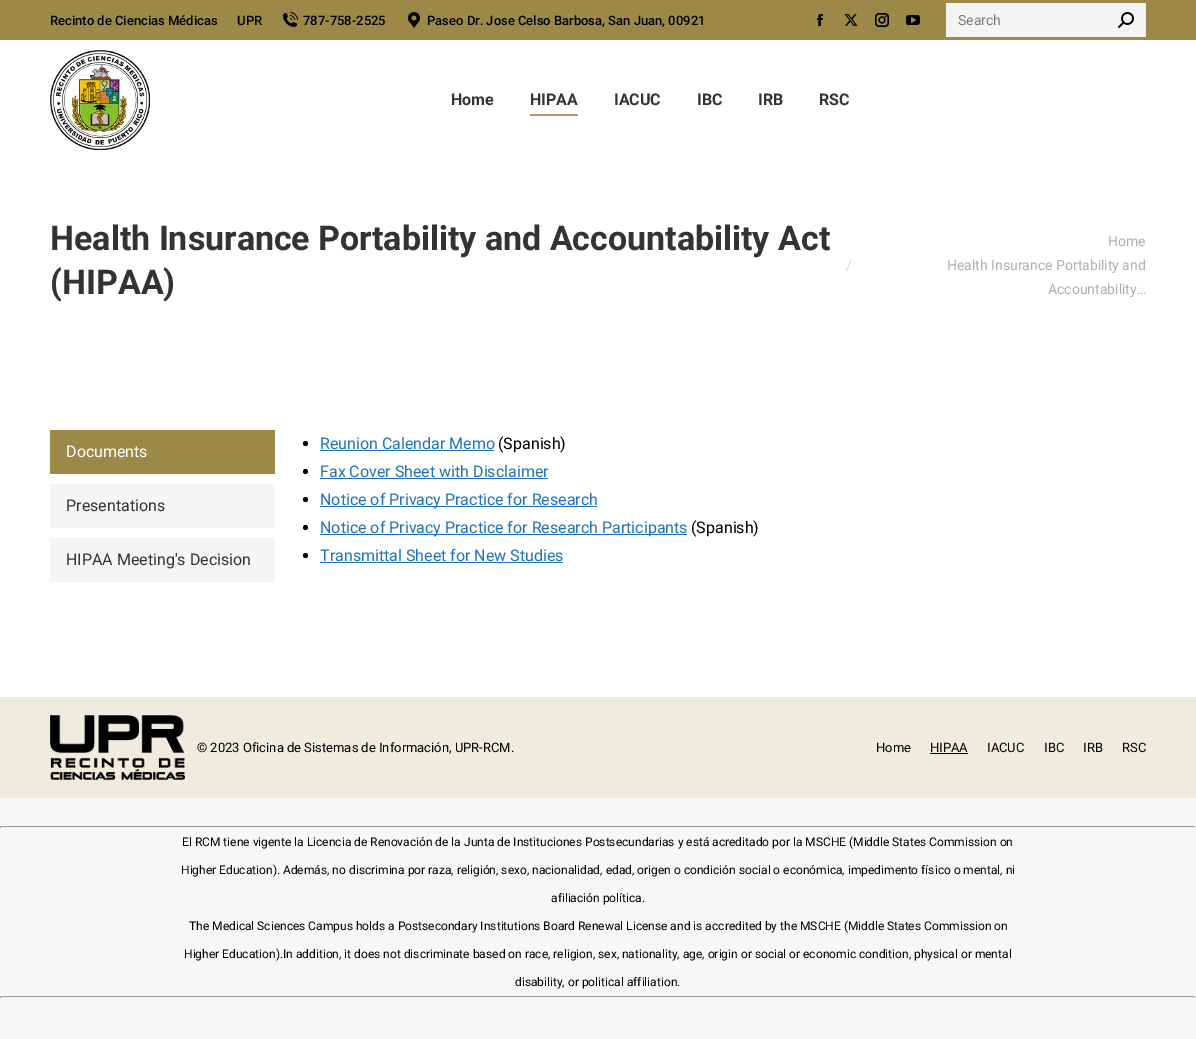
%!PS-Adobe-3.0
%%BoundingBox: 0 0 1196 1039
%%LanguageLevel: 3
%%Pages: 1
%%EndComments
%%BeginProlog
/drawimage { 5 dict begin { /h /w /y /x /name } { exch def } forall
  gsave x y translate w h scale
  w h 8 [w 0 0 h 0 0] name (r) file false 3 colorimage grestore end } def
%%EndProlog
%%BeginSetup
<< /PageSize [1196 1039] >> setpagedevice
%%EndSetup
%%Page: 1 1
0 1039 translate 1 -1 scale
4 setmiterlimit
0.969 setgray
0 0 1196 1039 rectfill
1 setgray
0 40 1196 657 rectfill
0.612 0.537 0.282 setrgbcolor
0 0 1196 40 rectfill
(images/1.raw) 283 12 15 15 drawimage
(images/2.raw) 408 12 12 16 drawimage
(images/3.raw) 817 14 6 12 drawimage
(images/4.raw) 844 14 14 12 drawimage
(images/5.raw) 875 13 14 14 drawimage
(images/6.raw) 906 15 14 10 drawimage
0.957 setgray
946 3 200 34 rectfill
(images/7.raw) 1118 12 16 16 drawimage
(images/8.raw) 50 50 100 100 drawimage
0.671 0.608 0.388 setrgbcolor
530 114 48 2 rectfill
0.612 0.537 0.282 setrgbcolor
50 430 225 44 rectfill
0.961 setgray
50 484 225 44 rectfill
50 538 225 44 rectfill
0 setgray
newpath 305.5 443.5 2.5 0 360 arc closepath fill
0.118 0.451 0.745 setrgbcolor
320 450 174 1 rectfill
0 setgray
newpath 305.5 471.5 2.5 0 360 arc closepath fill
0.118 0.451 0.745 setrgbcolor
320 478 228 1 rectfill
0 setgray
newpath 305.5 499.5 2.5 0 360 arc closepath fill
0.118 0.451 0.745 setrgbcolor
320 506 277 1 rectfill
0 setgray
newpath 305.5 527.5 2.5 0 360 arc closepath fill
0.118 0.451 0.745 setrgbcolor
320 534 367 1 rectfill
0 setgray
newpath 305.5 555.5 2.5 0 360 arc closepath fill
0.118 0.451 0.745 setrgbcolor
320 562 243 1 rectfill
0.937 0.922 0.875 setrgbcolor
0 697 1196 101 rectfill
(images/9.raw) 50 715 135 65 drawimage
0 setgray
930 753 38 1 rectfill
0.624 setgray
0 826 1196 1 rectfill
0.933 setgray
1195 826 1 2 rectfill
0 827 1196 1 rectfill
0.624 setgray
0 826 1 2 rectfill
0 996 1196 1 rectfill
0.933 setgray
1195 996 1 2 rectfill
0 997 1196 1 rectfill
0.624 setgray
0 996 1 2 rectfill
/Roboto-Medium [13 0 0 -13 0 0] selectfont
0 setgray
50 25 moveto (Recinto de Ciencias Médicas) show
237 25 moveto (UPR) show
303 25 moveto (787-758-2525) show
427 25 moveto (Paseo Dr. Jose Celso Barbosa, San Juan, 00921) show
/Roboto-Regular [14 0 0 -14 0 0] selectfont
0.478 setgray
958 25 moveto (Search) show
/Roboto-Bold [16 0 0 -16 0 0] selectfont
0.2 setgray
451 105 moveto (Home) show
530 105 moveto (HIPAA) show
614 105 moveto (IACUC) show
697 105 moveto (IBC) show
758 105 moveto (IRB) show
819 105 moveto (RSC) show
/Roboto-Bold [34 0 0 -34 0 0] selectfont
50 250 moveto (Health Insurance Portability and Accountability Act) show
50 294 moveto (\(HIPAA\)) show
/Roboto-Regular [14 0 0 -14 0 0] selectfont
0.678 0.686 0.702 setrgbcolor
1108 246 moveto (Home) show
0.839 0.843 0.851 setrgbcolor
846 270 moveto (/) show
0.678 0.686 0.702 setrgbcolor
947 270 moveto (Health Insurance Portability and) show
1048 294 moveto (Accountability…) show
/Roboto-Regular [16 0 0 -16 0 0] selectfont
1 setgray
66 457 moveto (Documents) show
0.2 setgray
66 511 moveto (Presentations) show
66 565 moveto (HIPAA Meeting's Decision) show
0.118 0.451 0.745 setrgbcolor
320 449 moveto (Reunion Calendar Memo) show
0 setgray
498 449 moveto (\(Spanish\)) show
0.118 0.451 0.745 setrgbcolor
320 477 moveto (Fax Cover Sheet with Disclaimer) show
320 505 moveto (Notice of Privacy Practice for Research) show
320 533 moveto (Notice of Privacy Practice for Research Participants) show
0 setgray
691 533 moveto (\(Spanish\)) show
0.118 0.451 0.745 setrgbcolor
320 561 moveto (Transmittal Sheet for New Studies) show
/Roboto-Regular [13 0 0 -13 0 0] selectfont
0 setgray
197 752 moveto (© 2023 Oficina de Sistemas de Información, UPR-RCM.) show
876 752 moveto (Home) show
930 752 moveto (HIPAA) show
987 752 moveto (IACUC) show
1044 752 moveto (IBC) show
1083 752 moveto (IRB) show
1122 752 moveto (RSC) show
/Roboto-Regular [12 0 0 -12 0 0] selectfont
182 846 moveto (El RCM tiene vigente la Licencia de Renovación de la Junta de Instituciones Postsecundarias y está acreditado por la MSCHE \(Middle States Commission on) show
181 874 moveto (Higher Education\). Además, no discrimina por raza, religión, sexo, nacionalidad, edad, origen o condición social o económica, impedimento físico o mental, ni) show
551 902 moveto (afiliación política.) show
189 930 moveto (The Medical Sciences Campus holds a Postsecondary Institutions Board Renewal License and is accredited by the MSCHE \(Middle States Commission on) show
184 958 moveto (Higher Education\).In addition, it does not discriminate based on race, religion, sex, nationality, age, origin or social or economic condition, physical or mental) show
515 986 moveto (disability, or political affiliation.) show
showpage
%%EOF
